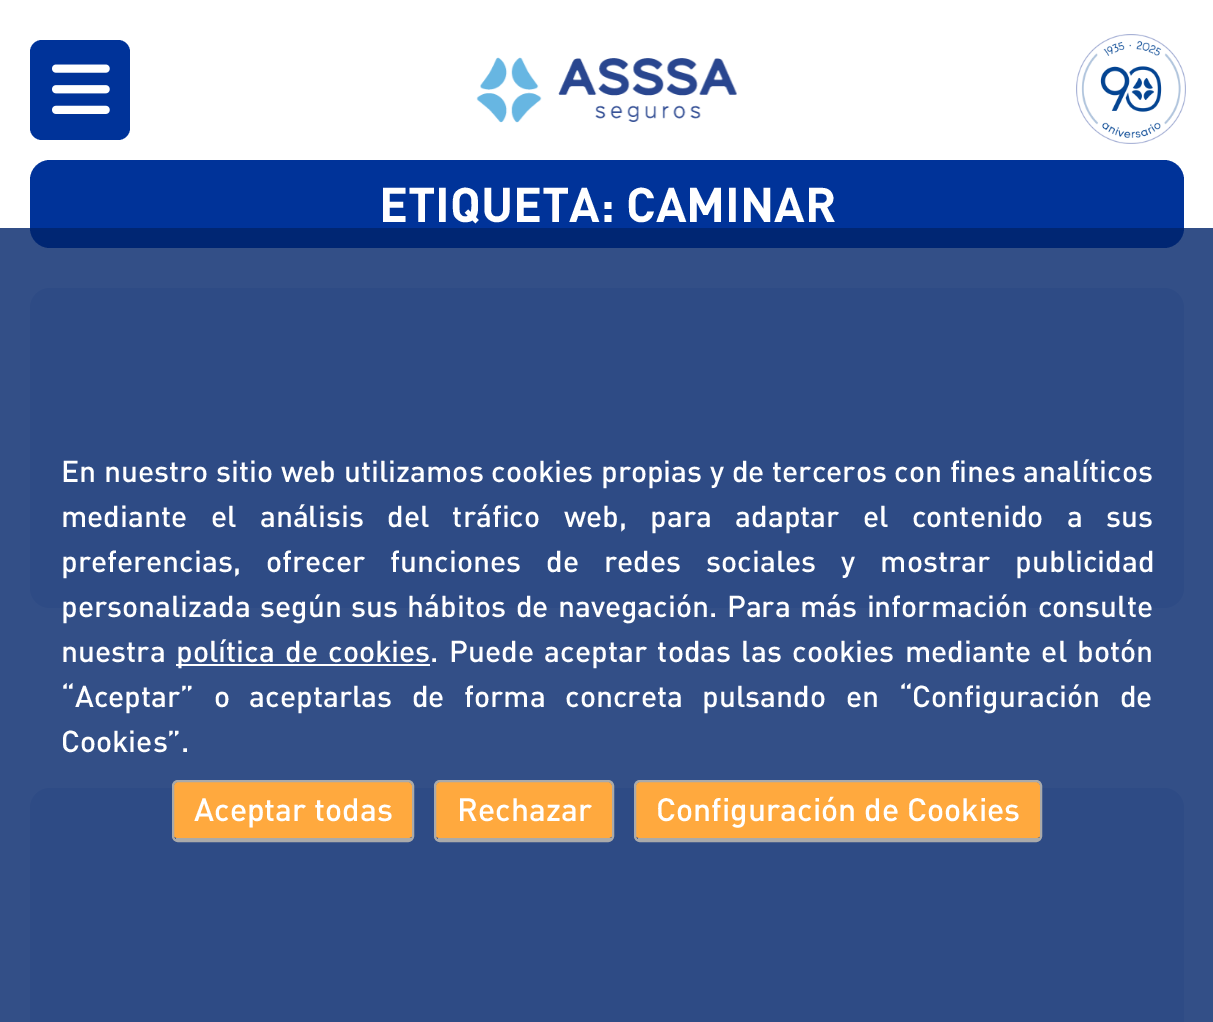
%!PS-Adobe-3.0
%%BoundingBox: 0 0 1213 1022
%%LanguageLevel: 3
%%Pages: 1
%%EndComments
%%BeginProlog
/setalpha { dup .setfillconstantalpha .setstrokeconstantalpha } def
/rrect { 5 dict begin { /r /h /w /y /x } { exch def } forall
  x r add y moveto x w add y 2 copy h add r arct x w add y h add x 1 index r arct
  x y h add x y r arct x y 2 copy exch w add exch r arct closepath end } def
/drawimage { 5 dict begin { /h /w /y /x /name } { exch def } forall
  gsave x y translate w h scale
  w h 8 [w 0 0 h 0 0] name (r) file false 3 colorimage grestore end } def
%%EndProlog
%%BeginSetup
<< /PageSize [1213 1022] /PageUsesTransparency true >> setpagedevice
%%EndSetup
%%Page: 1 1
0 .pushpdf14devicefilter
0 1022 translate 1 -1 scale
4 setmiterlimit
1 setgray
0 0 1213 1022 rectfill
0 0.2 0.6 setrgbcolor
30 40 100 100 12 rrect fill
(images/1.raw) 52 64 58 50 drawimage
(images/2.raw) 476 57 261 66 drawimage
(images/3.raw) 1076 34 110 110 drawimage
30 160 1154 88 20 rrect fill
0.894 0.914 0.957 setrgbcolor
30 288 1154 320 20 rrect fill
newpath 50 788 moveto 1164 788 lineto 1175 788 1184 797 1184 808 curveto 1184 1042 lineto 30 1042 lineto 30 808 lineto 30 797 39 788 50 788 curveto closepath fill
0.8 setalpha
0 0.137 0.412 setrgbcolor
0 228 1213 794 rectfill
1 setalpha
1 setgray
176 664 254 2 rectfill
1 0.663 0.243 setrgbcolor
newpath 178 782 moveto 408 782 lineto 410 782 412 784 412 786 curveto 412 836 lineto 412 837 410 838 408 838 curveto 178 838 lineto 176 838 174 837 174 836 curveto 174 786 lineto 174 784 176 782 178 782 curveto closepath fill
0.667 setgray
2 setlinewidth
173 781 240 60 5 rrect stroke
176 838 236 2 rectfill
1 0.663 0.243 setrgbcolor
newpath 440 782 moveto 608 782 lineto 610 782 612 784 612 786 curveto 612 836 lineto 612 837 610 838 608 838 curveto 440 838 lineto 438 838 436 837 436 836 curveto 436 786 lineto 436 784 438 782 440 782 curveto closepath fill
0.667 setgray
435 781 178 60 5 rrect stroke
438 838 174 2 rectfill
1 0.663 0.243 setrgbcolor
newpath 640 782 moveto 1036 782 lineto 1038 782 1040 784 1040 786 curveto 1040 836 lineto 1040 837 1038 838 1036 838 curveto 640 838 lineto 638 838 636 837 636 836 curveto 636 786 lineto 636 784 638 782 640 782 curveto closepath fill
0.667 setgray
635 781 406 60 5 rrect stroke
638 838 402 2 rectfill
/DIN-Bold [48 0 0 -48 0 0] selectfont
1 setgray
379 222 moveto (ETIQUETA: CAMINAR) show
/DIN-Medium [30 0 0 -30 0 0] selectfont
61 482 moveto 0.5 0 32 (En nuestro sitio web utilizamos cookies propias y de terceros con fines analíticos) widthshow
61 527 moveto 16.25 0 32 (mediante el análisis del tráfico web, para adaptar el contenido a sus) widthshow
61 572 moveto 18 0 32 (preferencias, ofrecer funciones de redes sociales y mostrar publicidad) widthshow
61 617 moveto 2.25 0 32 (personalizada según sus hábitos de navegación. Para más información consulte) widthshow
61 662 moveto (nuestra) show
176 662 moveto 3.25 0 32 (política de cookies. Puede aceptar todas las cookies mediante el botón) widthshow
61 707 moveto 12.5 0 32 (“Aceptar” o aceptarlas de forma concreta pulsando en “Configuración de) widthshow
61 752 moveto (Cookies”.) show
/DIN-Medium [32 0 0 -32 0 0] selectfont
194 821 moveto (Aceptar todas) show
457 821 moveto (Rechazar) show
656 821 moveto (Configuración de Cookies) show
.poppdf14devicefilter showpage
%%EOF
